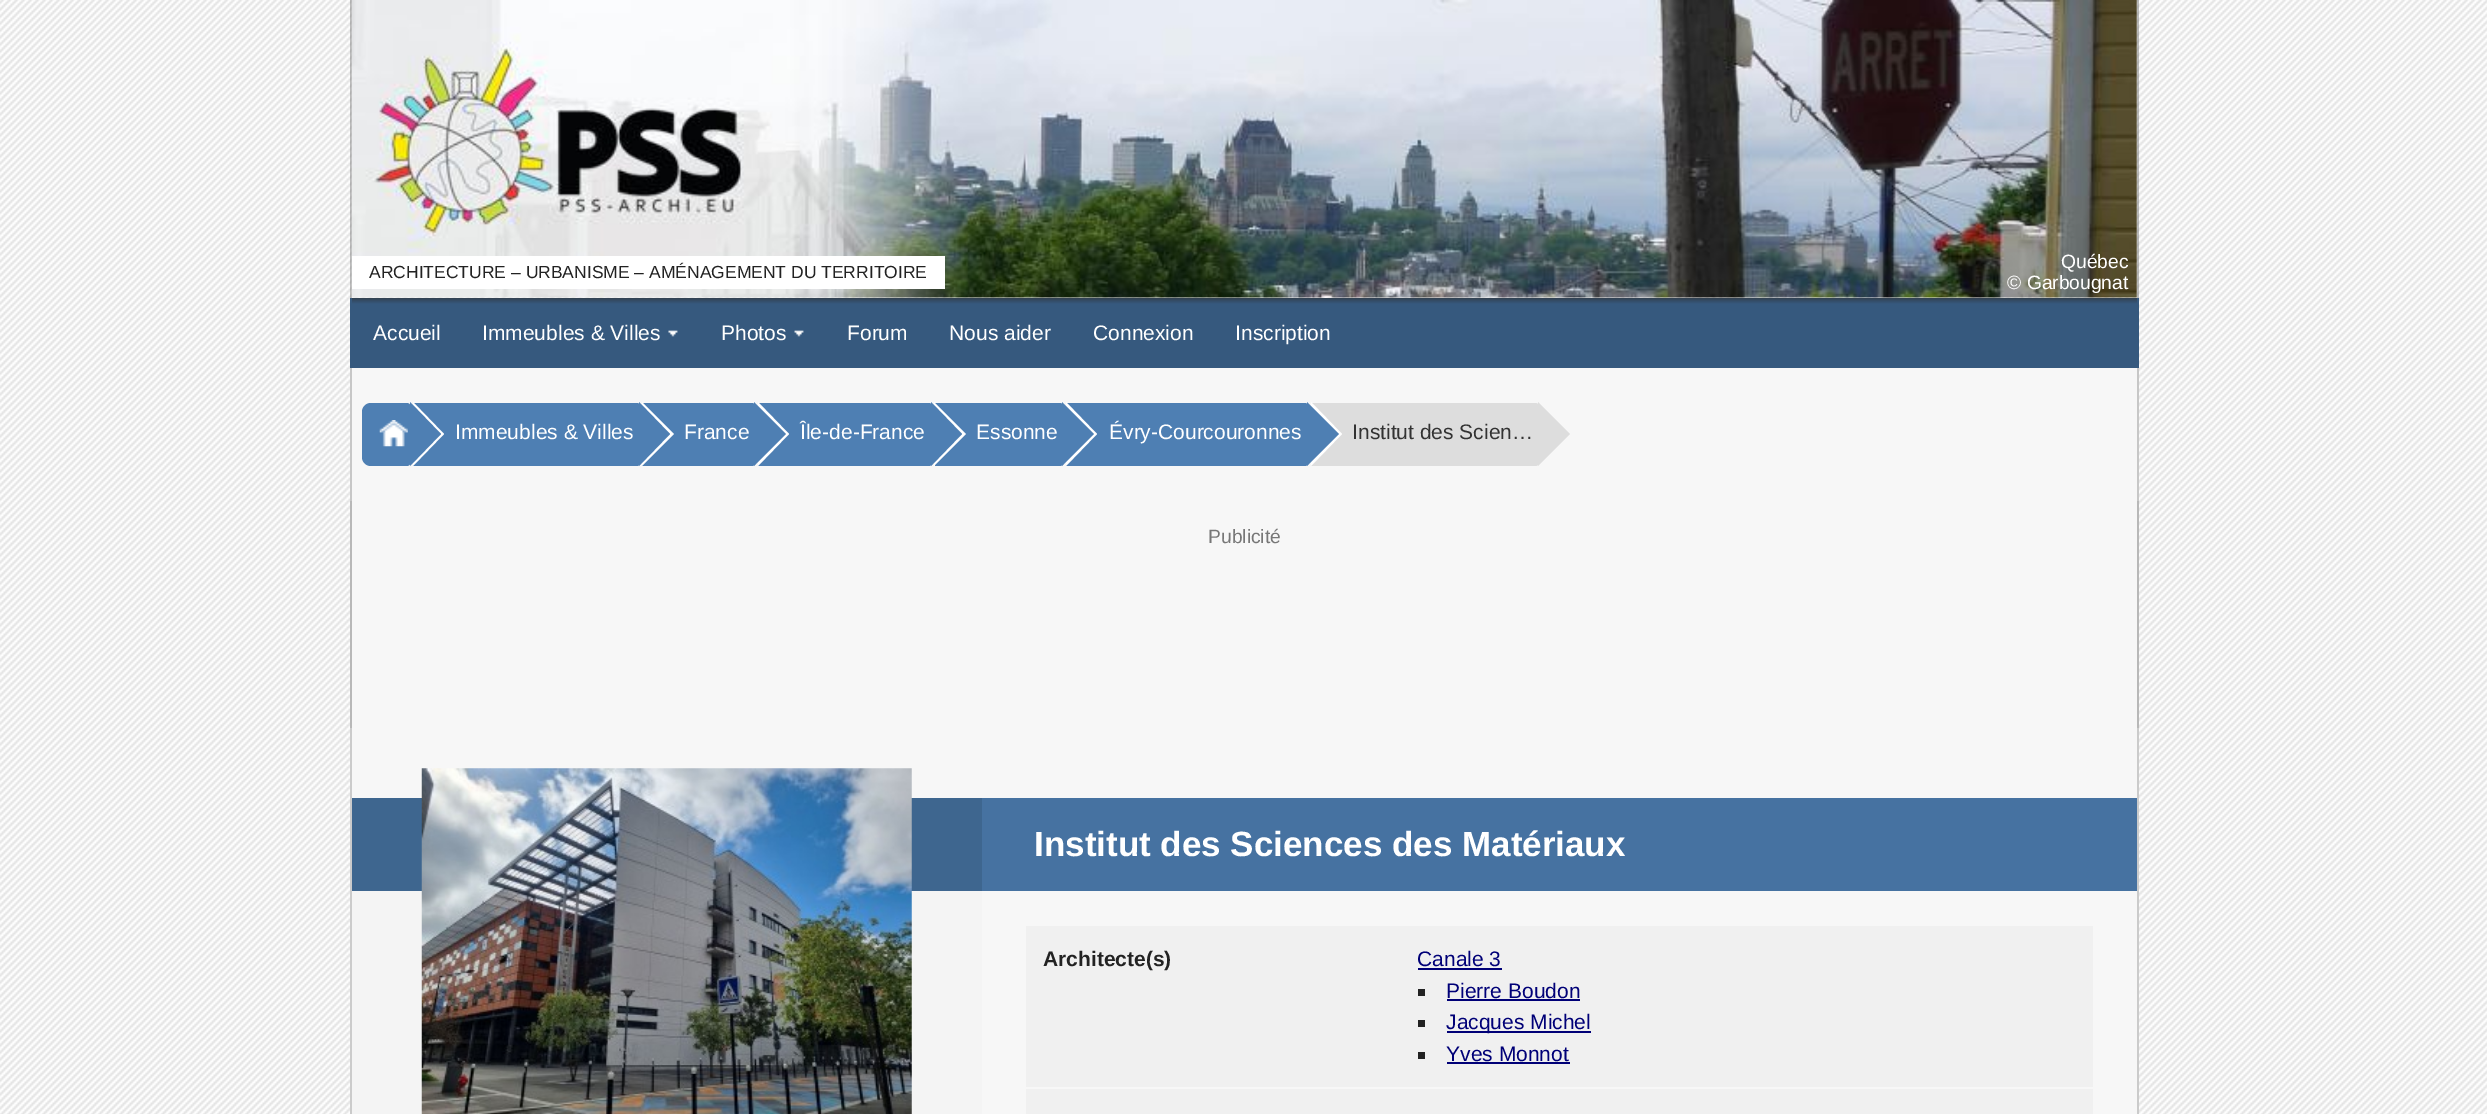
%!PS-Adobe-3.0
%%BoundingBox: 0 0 2487 1114
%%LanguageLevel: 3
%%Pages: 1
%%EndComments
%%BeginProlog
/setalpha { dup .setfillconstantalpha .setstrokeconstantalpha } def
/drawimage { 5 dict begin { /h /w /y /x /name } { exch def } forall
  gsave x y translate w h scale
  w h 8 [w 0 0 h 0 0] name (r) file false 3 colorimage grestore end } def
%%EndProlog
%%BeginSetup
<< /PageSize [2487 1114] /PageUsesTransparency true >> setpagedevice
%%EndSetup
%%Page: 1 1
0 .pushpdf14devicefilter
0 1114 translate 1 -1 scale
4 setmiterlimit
1 setgray
0 0 2487 1114 rectfill
(images/1.raw) 0 0 2487 1114 drawimage
0.5 setalpha
0.471 setgray
2137 0 2 298 rectfill
350 0 2 298 rectfill
1 setalpha
(images/2.raw) 351 0 1786 298 drawimage
1 setgray
352 256 593 33 rectfill
gsave newpath 352 298 moveto 2137 298 lineto 2137 366 lineto 352 366 lineto closepath clip newpath
<< /ShadingType 2 /ColorSpace /DeviceRGB /Coords [1244 297 1244 366] /Extend [true true] /Function << /FunctionType 3 /Domain [0 1] /Functions [<< /FunctionType 2 /Domain [0 1] /C0 [0.196 0.239 0.29] /C1 [0.212 0.349 0.494] /N 1 >> << /FunctionType 2 /Domain [0 1] /C0 [0.212 0.349 0.494] /C1 [0.212 0.349 0.494] /N 1 >>] /Bounds [0.1] /Encode [0 1 0 1] >> >> shfill grestore
0.212 0.349 0.494 setrgbcolor
2137 298 2 70 rectfill
350 366 1789 2 rectfill
350 298 2 70 rectfill
(images/3.raw) 668 330 10 7 drawimage
(images/4.raw) 794 330 10 7 drawimage
0.78 setgray
2137 368 2 133 rectfill
350 368 2 133 rectfill
0.969 setgray
352 368 1785 746 rectfill
0.306 0.498 0.702 setrgbcolor
newpath 371 403 moveto 407 403 lineto 409 403 411 405 411 407 curveto 411 462 lineto 411 464 409 466 407 466 curveto 371 466 lineto 366 466 362 462 362 457 curveto 362 412 lineto 362 407 366 403 371 403 curveto closepath fill
(images/5.raw) 379 420 29 27 drawimage
newpath 413 403 moveto 637 403 lineto 639 403 641 405 641 407 curveto 641 462 lineto 641 464 639 466 637 466 curveto 413 466 lineto closepath fill
1 setgray
newpath 413 466 moveto 413 402 lineto 444 434 lineto closepath fill
0.306 0.498 0.702 setrgbcolor
newpath 410 466 moveto 410 402 lineto 441 434 lineto closepath fill
newpath 642 403 moveto 752 403 lineto 754 403 756 405 756 407 curveto 756 462 lineto 756 464 754 466 752 466 curveto 642 466 lineto closepath fill
1 setgray
newpath 642 466 moveto 642 402 lineto 674 434 lineto closepath fill
0.306 0.498 0.702 setrgbcolor
newpath 639 466 moveto 639 402 lineto 670 434 lineto closepath fill
newpath 758 403 moveto 929 403 lineto 931 403 933 405 933 407 curveto 933 462 lineto 933 464 931 466 929 466 curveto 758 466 lineto closepath fill
1 setgray
newpath 758 466 moveto 758 402 lineto 789 434 lineto closepath fill
0.306 0.498 0.702 setrgbcolor
newpath 754 466 moveto 754 402 lineto 786 434 lineto closepath fill
newpath 935 403 moveto 1060 403 lineto 1062 403 1064 405 1064 407 curveto 1064 462 lineto 1064 464 1062 466 1060 466 curveto 935 466 lineto closepath fill
1 setgray
newpath 934 466 moveto 934 402 lineto 966 434 lineto closepath fill
0.306 0.498 0.702 setrgbcolor
newpath 931 466 moveto 931 402 lineto 962 434 lineto closepath fill
newpath 1066 403 moveto 1305 403 lineto 1307 403 1309 405 1309 407 curveto 1309 462 lineto 1309 464 1307 466 1305 466 curveto 1066 466 lineto closepath fill
1 setgray
newpath 1066 466 moveto 1066 402 lineto 1097 434 lineto closepath fill
0.306 0.498 0.702 setrgbcolor
newpath 1062 466 moveto 1062 402 lineto 1094 434 lineto closepath fill
0.867 setgray
newpath 1311 403 moveto 1535 403 lineto 1538 403 1540 405 1540 408 curveto 1540 461 lineto 1540 464 1538 466 1535 466 curveto 1311 466 lineto closepath fill
1 setgray
newpath 1311 466 moveto 1311 402 lineto 1342 434 lineto closepath fill
0.306 0.498 0.702 setrgbcolor
newpath 1307 466 moveto 1307 402 lineto 1339 434 lineto closepath fill
0.867 setgray
newpath 1538 466 moveto 1538 402 lineto 1570 434 lineto closepath fill
0.722 setgray
2137 501 2 227 rectfill
350 501 2 227 rectfill
0.796 setgray
2137 728 2 386 rectfill
350 728 2 386 rectfill
0.243 0.4 0.561 setrgbcolor
352 798 630 93 rectfill
0.275 0.447 0.631 setrgbcolor
982 798 1155 93 rectfill
0.957 setgray
352 891 630 223 rectfill
(images/6.raw) 421 768 491 346 drawimage
0.941 setgray
1026 926 1067 161 rectfill
0 0 0.467 setrgbcolor
1418 968 84 2 rectfill
0.133 setgray
1418 989 7 7 rectfill
0 0 0.467 setrgbcolor
1447 999 133 2 rectfill
0.133 setgray
1418 1020 7 7 rectfill
0 0 0.467 setrgbcolor
1447 1031 144 2 rectfill
0.133 setgray
1418 1052 7 7 rectfill
0 0 0.467 setrgbcolor
1447 1062 123 2 rectfill
0.941 setgray
1026 1089 1067 25 rectfill
/LiberationSans-Regular [17.5 0 0 -17.5 0 0] selectfont
0.133 setgray
369 278 moveto (ARCHITECTURE – URBANISME – AMÉNAGEMENT DU TERRITOIRE) show
/LiberationSans-Regular [19.25 0 0 -19.25 0 0] selectfont
1 setgray
2061 268 moveto (Québec) show
2007 289 moveto (© Garbougnat) show
/LiberationSans-Regular [21 0 0 -21 0 0] selectfont
373 340 moveto (Accueil) show
482 340 moveto (Immeubles & Villes) show
721 340 moveto (Photos) show
847 340 moveto (Forum) show
949 340 moveto (Nous aider) show
1093 340 moveto (Connexion) show
1235 340 moveto (Inscription) show
455 439 moveto (Immeubles & Villes) show
684 439 moveto (France) show
800 439 moveto (Île-de-France) show
976 439 moveto (Essonne) show
1109 439 moveto (Évry-Courcouronnes) show
0.2 setgray
1352 439 moveto (Institut des Scien…) show
/LiberationSans-Regular [19.25 0 0 -19.25 0 0] selectfont
0.467 setgray
1208 543 moveto (Publicité) show
/LiberationSans-Bold [35 0 0 -35 0 0] selectfont
1 setgray
1034 856 moveto (Institut des Sciences des Matériaux) show
/LiberationSans-Bold [21 0 0 -21 0 0] selectfont
0.133 setgray
1043 966 moveto (Architecte\(s\)) show
/LiberationSans-Regular [21 0 0 -21 0 0] selectfont
0 0 0.467 setrgbcolor
1417 966 moveto (Canale 3) show
1446 998 moveto (Pierre Boudon) show
1446 1029 moveto (Jacques Michel) show
1446 1061 moveto (Yves Monnot) show
.poppdf14devicefilter showpage
%%EOF
